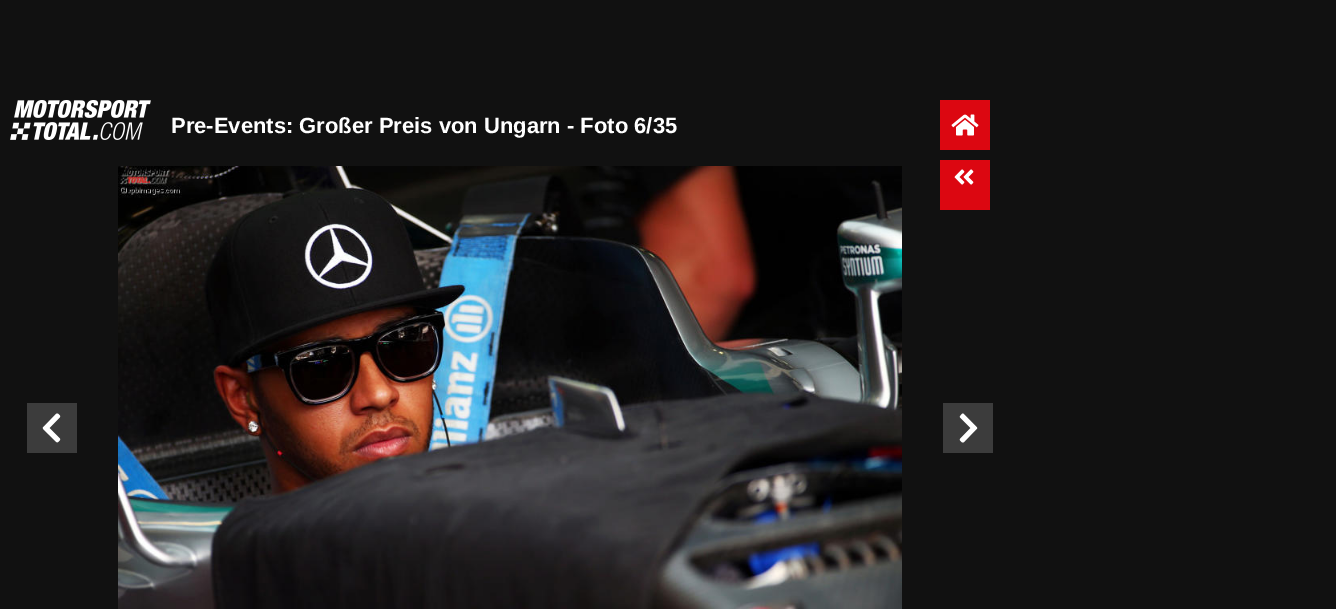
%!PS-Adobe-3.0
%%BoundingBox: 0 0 1336 609
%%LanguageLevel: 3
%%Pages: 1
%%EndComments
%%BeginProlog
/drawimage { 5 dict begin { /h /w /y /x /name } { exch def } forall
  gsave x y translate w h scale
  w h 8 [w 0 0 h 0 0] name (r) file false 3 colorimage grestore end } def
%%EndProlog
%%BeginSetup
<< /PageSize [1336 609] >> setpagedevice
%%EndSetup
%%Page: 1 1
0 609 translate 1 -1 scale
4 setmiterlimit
0.067 setgray
0 0 1336 609 rectfill
(images/1.raw) 10 100 141 40 drawimage
0.863 0.027 0.067 setrgbcolor
940 100 50 50 rectfill
(images/2.raw) 951 114 28 22 drawimage
940 160 50 50 rectfill
(images/3.raw) 954 169 20 16 drawimage
0.235 setgray
27 403 50 50 rectfill
(images/4.raw) 42 413 19 30 drawimage
(images/5.raw) 118 166 784 443 drawimage
943 403 50 50 rectfill
(images/6.raw) 959 413 19 30 drawimage
/LiberationSans-Bold [22 0 0 -22 0 0] selectfont
1 setgray
171 133 moveto (Pre-Events: Großer Preis von Ungarn - Foto 6/35) show
showpage
%%EOF
